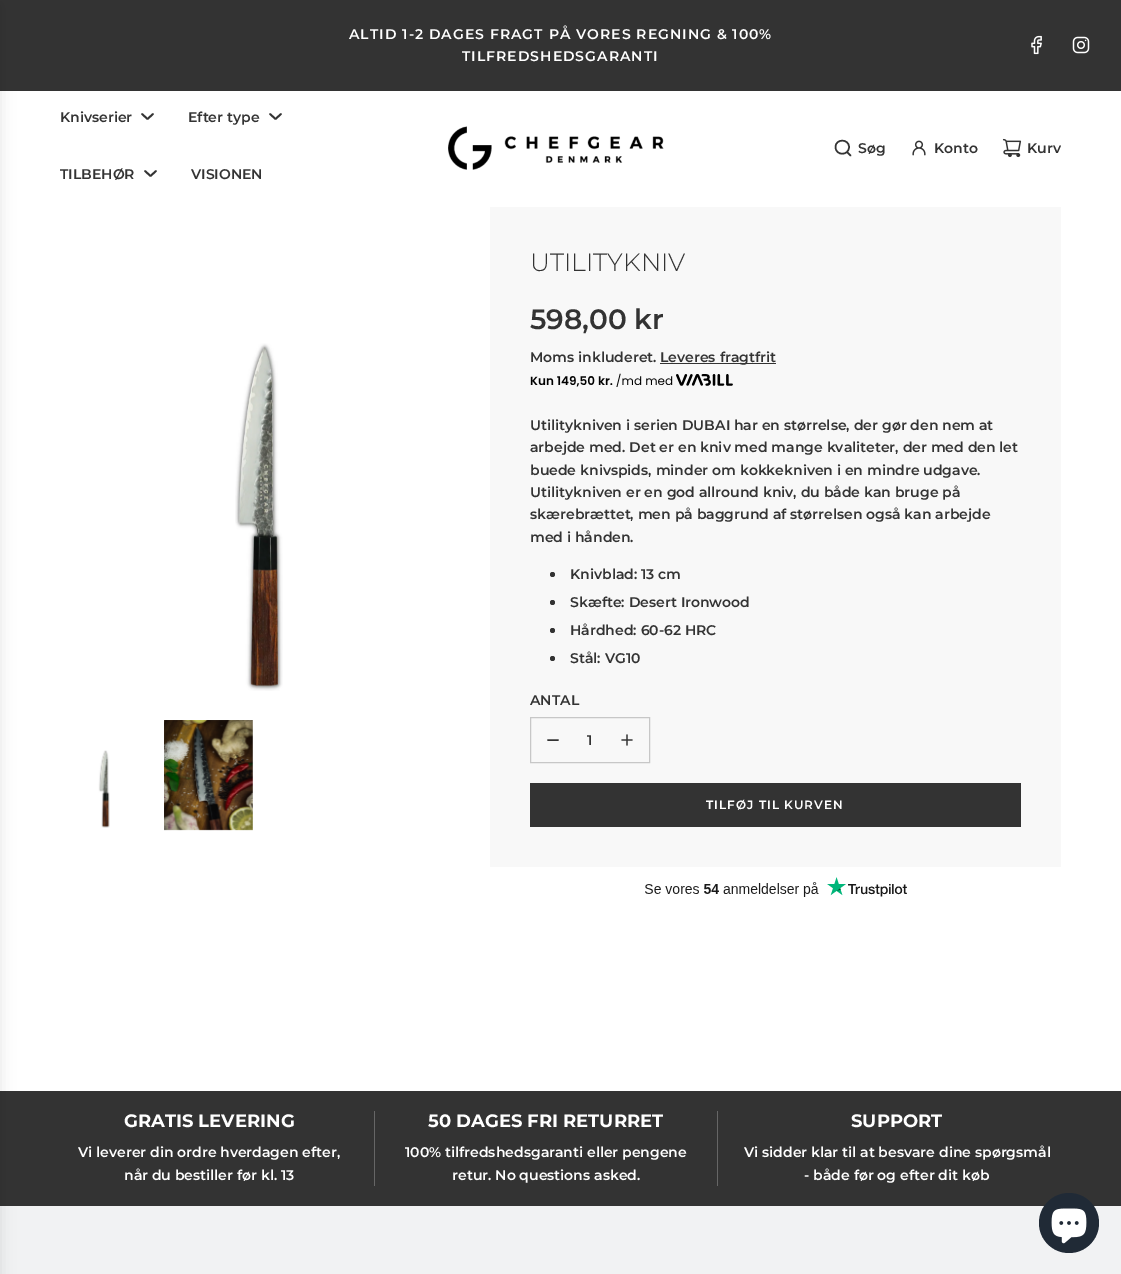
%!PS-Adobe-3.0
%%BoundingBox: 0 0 1121 1274
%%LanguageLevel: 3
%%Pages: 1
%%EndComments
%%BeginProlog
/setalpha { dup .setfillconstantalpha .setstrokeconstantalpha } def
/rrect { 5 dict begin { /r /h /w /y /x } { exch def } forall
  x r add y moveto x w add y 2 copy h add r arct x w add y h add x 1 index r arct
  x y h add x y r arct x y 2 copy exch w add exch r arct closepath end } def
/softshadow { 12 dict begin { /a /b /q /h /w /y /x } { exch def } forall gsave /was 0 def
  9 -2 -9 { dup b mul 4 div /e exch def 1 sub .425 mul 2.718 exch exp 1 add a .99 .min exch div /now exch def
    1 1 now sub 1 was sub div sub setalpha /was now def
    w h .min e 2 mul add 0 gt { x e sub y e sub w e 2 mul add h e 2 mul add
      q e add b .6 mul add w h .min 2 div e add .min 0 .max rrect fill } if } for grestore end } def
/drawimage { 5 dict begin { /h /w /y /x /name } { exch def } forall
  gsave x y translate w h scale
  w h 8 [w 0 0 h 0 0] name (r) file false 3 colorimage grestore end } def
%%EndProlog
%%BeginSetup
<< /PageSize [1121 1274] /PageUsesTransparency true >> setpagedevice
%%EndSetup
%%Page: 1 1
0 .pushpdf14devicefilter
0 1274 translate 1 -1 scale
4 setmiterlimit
1 setgray
0 0 1121 1274 rectfill
0.2 setgray
0 0 1121 91 rectfill
(images/1.raw) 1031 35 11 20 drawimage
(images/2.raw) 1072 36 18 18 drawimage
0 1091 1121 115 rectfill
0.945 0.949 0.953 setrgbcolor
0 1206 1121 68 rectfill
0 setgray
-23 5 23 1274 0 7.5 0.1 softshadow
0.2 setgray
1.8 setlinewidth
1 setlinecap
1 setlinejoin
newpath 142 114 moveto 147.5 119 lineto 153 114 lineto stroke
newpath 270 114 moveto 275.5 119 lineto 281 114 lineto stroke
newpath 145 171 moveto 150.5 176 lineto 156 171 lineto stroke
(images/3.raw) 448 126 216 44 drawimage
1.5 setlinewidth
newpath 847 152 moveto 850.5 155.5 lineto 835.5 147 moveto 835.5 156 849 156 849 147 curveto 849 138.5 835.5 138.5 835.5 147 curveto closepath stroke
(images/4.raw) 912 140 14 16 drawimage
(images/5.raw) 1002 138 20 20 drawimage
(images/6.raw) 235 343 48 348 drawimage
(images/7.raw) 98 750 12 78 drawimage
(images/8.raw) 164 720 89 111 drawimage
0.973 setgray
490 207 571 660 rectfill
0.2 setgray
660 363 116 1 rectfill
(images/9.raw) 530 373 203 14 drawimage
newpath 552.5 574.5 2.5 0 360 arc closepath fill
newpath 552.5 602.5 2.5 0 360 arc closepath fill
newpath 552.5 630.5 2.5 0 360 arc closepath fill
newpath 552.5 658.5 2.5 0 360 arc closepath fill
0.78 setgray
1 setlinewidth
0 setlinecap
0 setlinejoin
530.5 717.5 119 45 rectstroke
0.2 setgray
1.5 setlinewidth
1 setlinecap
1 setlinejoin
newpath 548 740 moveto 558 740 lineto stroke
(images/10.raw) 621 734 12 12 drawimage
530 783 491 44 rectfill
(images/11.raw) 645 877 262 20 drawimage
0.4 setgray
374 1111 1 75 rectfill
717 1111 1 75 rectfill
0.125 0.165 0.212 setrgbcolor
newpath 1069 1223 30 0 360 arc closepath fill
(images/12.raw) 1051 1208 36 36 drawimage
/Montserrat-SemiBold [14 0 0 -14 0 0] selectfont
1 setgray
349 39 moveto 1 0 (ALTID 1-2 DAGES FRAGT PÅ VORES REGNING & 100%) ashow
462 61 moveto 1 0 (TILFREDSHEDSGARANTI) ashow
0.2 setgray
60 122 moveto (Knivserier) show
188 122 moveto (Efter type) show
60 179 moveto (TILBEHØR) show
191 179 moveto (VISIONEN) show
858 153 moveto (Søg) show
934 153 moveto (Konto) show
1027 153 moveto (Kurv) show
/Montserrat-Light [25 0 0 -25 0 0] selectfont
530 271 moveto (UTILITYKNIV) show
/Montserrat-SemiBold [28 0 0 -28 0 0] selectfont
530 329 moveto (598,00 kr) show
/Montserrat-SemiBold [14 0 0 -14 0 0] selectfont
530 362 moveto (Moms inkluderet.) show
660 362 moveto (Leveres fragtfrit) show
530 430 moveto (Utilitykniven i serien DUBAI har en størrelse, der gør den nem at) show
530 452 moveto (arbejde med. Det er en kniv med mange kvaliteter, der med den let) show
530 475 moveto (buede knivspids, minder om kokkekniven i en mindre udgave.) show
530 497 moveto (Utilitykniven er en god allround kniv, du både kan bruge på) show
530 519 moveto (skærebrættet, men på baggrund af størrelsen også kan arbejde) show
530 542 moveto (med i hånden.) show
570 579 moveto (Knivblad: 13 cm) show
570 607 moveto (Skæfte: Desert Ironwood) show
570 635 moveto (Hårdhed: 60-62 HRC) show
570 663 moveto (Stål: VG10) show
530 705 moveto (ANTAL) show
587 745 moveto (1) show
/Montserrat-SemiBold [12 0 0 -12 0 0] selectfont
1 setgray
706 809 moveto 1 0 (TILFØJ TIL KURVEN) ashow
/Montserrat-Bold [18 0 0 -18 0 0] selectfont
124 1127 moveto (GRATIS LEVERING) show
/Montserrat-SemiBold [14 0 0 -14 0 0] selectfont
78 1157 moveto (Vi leverer din ordre hverdagen efter,) show
124 1180 moveto (når du bestiller før kl. 13) show
/Montserrat-Bold [18 0 0 -18 0 0] selectfont
428 1127 moveto (50 DAGES FRI RETURRET) show
/Montserrat-SemiBold [14 0 0 -14 0 0] selectfont
405 1157 moveto (100% tilfredshedsgaranti eller pengene) show
452 1180 moveto (retur. No questions asked.) show
/Montserrat-Bold [18 0 0 -18 0 0] selectfont
851 1127 moveto (SUPPORT) show
/Montserrat-SemiBold [14 0 0 -14 0 0] selectfont
744 1157 moveto (Vi sidder klar til at besvare dine spørgsmål) show
804 1180 moveto (- både før og efter dit køb) show
.poppdf14devicefilter showpage
%%EOF
